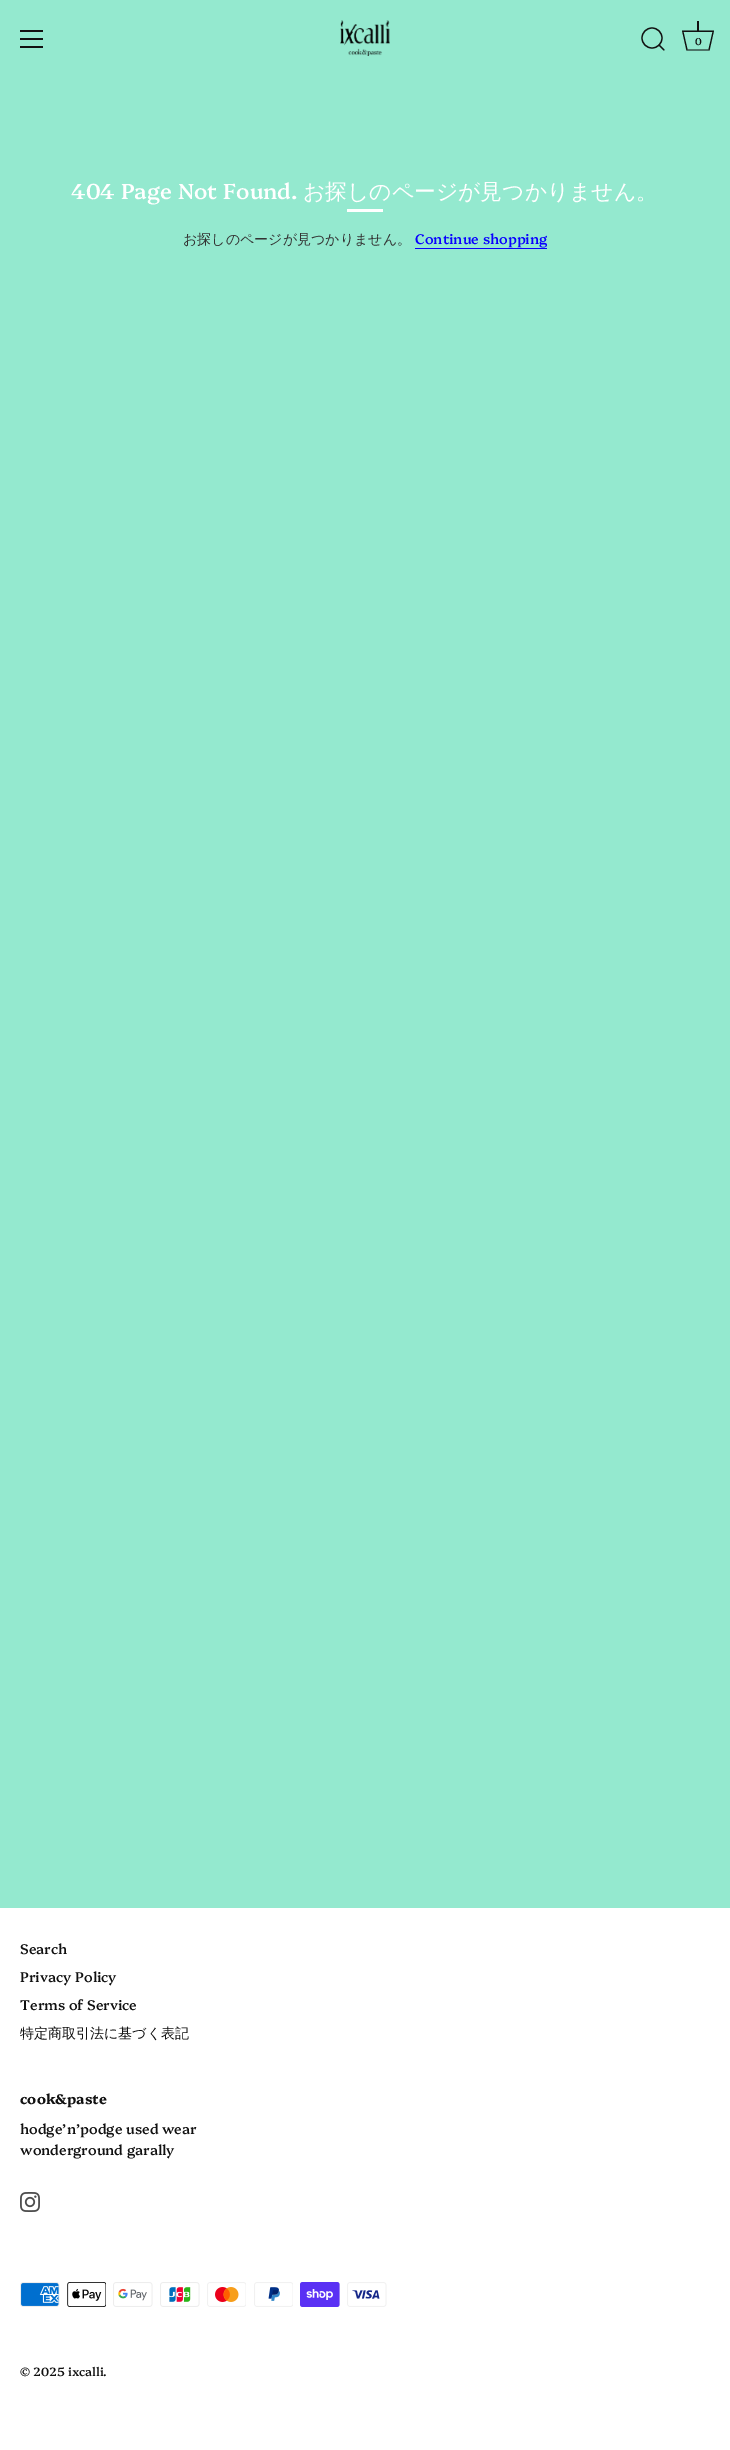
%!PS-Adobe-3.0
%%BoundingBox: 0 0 730 2450
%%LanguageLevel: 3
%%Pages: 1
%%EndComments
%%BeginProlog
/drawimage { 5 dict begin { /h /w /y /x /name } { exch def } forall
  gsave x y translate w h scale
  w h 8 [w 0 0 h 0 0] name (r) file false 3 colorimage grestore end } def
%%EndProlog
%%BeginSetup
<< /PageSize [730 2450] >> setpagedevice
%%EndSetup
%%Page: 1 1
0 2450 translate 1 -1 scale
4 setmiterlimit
0.58 0.914 0.812 setrgbcolor
0 0 730 2450 rectfill
0.067 setgray
20 30 23 2 rectfill
20 38 23 2 rectfill
20 46 23 2 rectfill
(images/1.raw) 340 20 50 36 drawimage
1.2 setlinewidth
newpath 652 38 10 0 360 arc closepath stroke
1 setlinecap
1 setlinejoin
newpath 664 50 moveto 659 45 lineto stroke
newpath 712.5 32 moveto 708.5 49.5 lineto 687.5 49.5 lineto 683.5 32 lineto 712.5 32 lineto 714 30.5 moveto 682 30.5 lineto 686.5 50.5 lineto 709.5 50.5 lineto closepath fill
697 21 2 10 rectfill
1 setgray
347 209 36 3 rectfill
0.035 0 1 setrgbcolor
415 248 132 1 rectfill
1 setgray
0 1908 730 542 rectfill
(images/2.raw) 20 2192 20 20 drawimage
(images/3.raw) 20 2282 40 25 drawimage
(images/4.raw) 67 2282 39 25 drawimage
(images/5.raw) 113 2282 40 25 drawimage
(images/6.raw) 160 2282 40 25 drawimage
(images/7.raw) 207 2282 39 25 drawimage
(images/8.raw) 254 2282 39 25 drawimage
(images/9.raw) 300 2282 40 25 drawimage
(images/10.raw) 347 2282 40 25 drawimage
/Platypi-Medium [10 0 0 -10 0 0] selectfont
0.067 setgray
695 45 moveto (0) show
/Platypi-Medium [21.8 0 0 -21.8 0 0] selectfont
1 setgray
71 199 moveto (404 Page Not Found.) show
/WenQuanYiZenHei-Medium [21.8 0 0 -21.8 0 0] selectfont
303 199 moveto (お探しのページが見つかりません。) show
/WenQuanYiZenHei-Medium [14 0 0 -14 0 0] selectfont
0.2 setgray
183 244 moveto (お探しのページが見つかりません。) show
/Platypi-Medium [14 0 0 -14 0 0] selectfont
0.035 0 1 setrgbcolor
415 244 moveto (Continue shopping) show
0.067 setgray
20 1954 moveto (Search) show
20 1982 moveto (Privacy Policy) show
20 2010 moveto (Terms of Service) show
/WenQuanYiZenHei-Medium [14 0 0 -14 0 0] selectfont
20 2038 moveto (特定商取引法に基づく表記) show
/Platypi-Bold [14 0 0 -14 0 0] selectfont
20 2104 moveto (cook&paste) show
/Platypi-Medium [14 0 0 -14 0 0] selectfont
20 2134 moveto (hodge’n’podge used wear) show
20 2155 moveto (wonderground garally) show
/Platypi-Medium [12 0 0 -12 0 0] selectfont
20 2376 moveto (© 2025 ixcalli.) show
showpage
%%EOF
